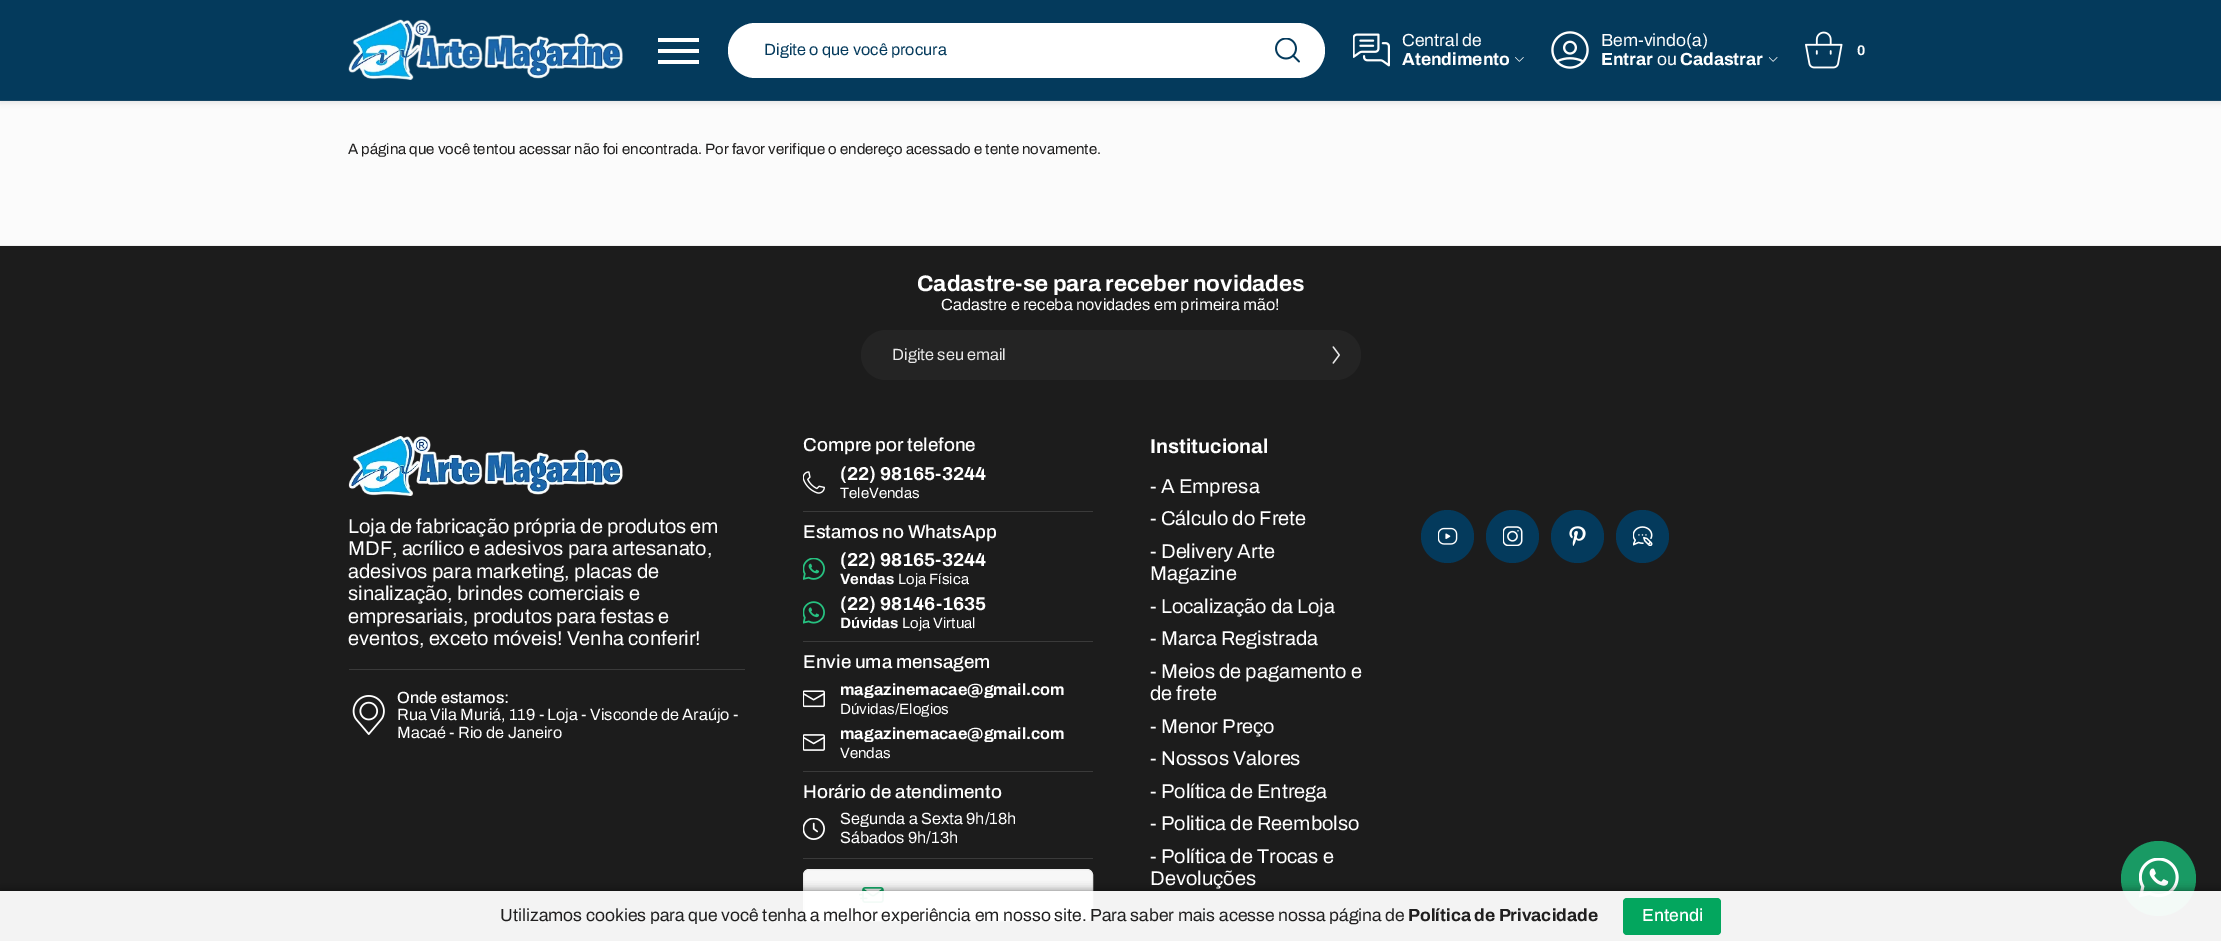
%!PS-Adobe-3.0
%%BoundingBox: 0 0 2221 941
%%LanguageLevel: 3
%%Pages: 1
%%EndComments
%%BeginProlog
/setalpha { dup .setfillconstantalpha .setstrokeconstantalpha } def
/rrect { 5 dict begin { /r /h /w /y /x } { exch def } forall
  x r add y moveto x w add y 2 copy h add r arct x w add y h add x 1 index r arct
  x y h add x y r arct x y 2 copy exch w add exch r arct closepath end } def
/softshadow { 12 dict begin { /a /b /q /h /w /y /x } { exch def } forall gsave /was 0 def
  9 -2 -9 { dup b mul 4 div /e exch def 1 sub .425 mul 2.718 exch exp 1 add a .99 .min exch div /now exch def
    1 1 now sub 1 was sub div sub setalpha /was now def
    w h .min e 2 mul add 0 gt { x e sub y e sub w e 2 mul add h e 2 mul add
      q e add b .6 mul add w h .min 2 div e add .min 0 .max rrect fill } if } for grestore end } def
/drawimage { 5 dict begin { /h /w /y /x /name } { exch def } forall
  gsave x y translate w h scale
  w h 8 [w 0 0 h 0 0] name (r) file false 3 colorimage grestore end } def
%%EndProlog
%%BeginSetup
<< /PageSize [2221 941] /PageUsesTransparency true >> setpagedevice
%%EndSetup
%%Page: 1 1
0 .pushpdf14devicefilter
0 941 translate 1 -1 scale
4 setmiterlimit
0.984 setgray
0 0 2221 941 rectfill
0.322 setgray
0 1 2221 102 0 2.5 0.13 softshadow
0.016 0.227 0.361 setrgbcolor
0 0 2221 100 rectfill
0.086 0.271 0.388 setrgbcolor
0 100 2221 1 rectfill
(images/1.raw) 348 19 275 61 drawimage
1 setgray
658 60 41 4 rectfill
658 38 41 4 rectfill
658 49 41 4 rectfill
728 23 597 55 27.5 rrect fill
(images/2.raw) 1275 38 25 25 drawimage
(images/3.raw) 1353 33 37 34 drawimage
(images/4.raw) 1515 57 9 5 drawimage
(images/5.raw) 1551 31 38 38 drawimage
(images/6.raw) 1769 57 9 5 drawimage
(images/7.raw) 1805 31 38 38 drawimage
0.937 setgray
0 245 2221 1 rectfill
0.11 setgray
0 246 2221 695 rectfill
0.141 setgray
861 330 500 50 25 rrect fill
(images/8.raw) 1332 346 8 18 drawimage
(images/9.raw) 348 436 275 60 drawimage
0.227 setgray
349 669 396 1 rectfill
(images/10.raw) 352 695 33 40 drawimage
803 511 290 1 rectfill
(images/11.raw) 803 471 22 23 drawimage
803 641 290 1 rectfill
(images/12.raw) 803 558 22 22 drawimage
(images/13.raw) 803 601 22 23 drawimage
803 771 290 1 rectfill
(images/14.raw) 803 690 22 18 drawimage
(images/15.raw) 803 734 22 17 drawimage
803 858 290 1 rectfill
(images/16.raw) 803 818 22 22 drawimage
0.969 setgray
803.5 869.5 289 51 5.5 rrect gsave fill grestore
0.929 setgray
stroke
(images/17.raw) 859 887 25 16 drawimage
0.016 0.227 0.361 setrgbcolor
newpath 1447.5 536.5 26.5 0 360 arc closepath fill
(images/18.raw) 1438 527 20 18 drawimage
newpath 1512.5 536.5 26.5 0 360 arc closepath fill
(images/19.raw) 1503 526 20 20 drawimage
newpath 1577.5 536.5 26.5 0 360 arc closepath fill
(images/20.raw) 1569 526 17 20 drawimage
newpath 1642.5 536.5 26.5 0 360 arc closepath fill
(images/21.raw) 1633 526 20 20 drawimage
0.098 0.604 0.392 setrgbcolor
newpath 2158.5 878.5 37.5 0 360 arc closepath fill
(images/22.raw) 2139 858 40 40 drawimage
gsave
newpath 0 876 moveto 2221 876 lineto 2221 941 lineto 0 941 lineto closepath 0 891 moveto 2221 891 lineto 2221 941 lineto 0 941 lineto closepath eoclip newpath
0 setgray
0 891 2221 50 0 4.5 0.5 softshadow
grestore
0.95 setalpha
1 setgray
0 891 2221 50 rectfill
1 setalpha
0.012 0.651 0.369 setrgbcolor
1623 898 98 37 4 rrect fill
/Archivo-Regular [16.25 0 0 -16.25 0 0] selectfont
0.016 0.227 0.361 setrgbcolor
764 55 moveto (Digite o que você procura) show
/Archivo-Regular [17.5 0 0 -17.5 0 0] selectfont
1 setgray
1402 46 moveto (Central de) show
/Archivo-Bold [17.5 0 0 -17.5 0 0] selectfont
1402 65 moveto (Atendimento) show
/Archivo-Regular [17.5 0 0 -17.5 0 0] selectfont
1601 46 moveto (Bem-vindo\(a\)) show
/Archivo-Bold [17.5 0 0 -17.5 0 0] selectfont
1601 65 moveto (Entrar) show
/Archivo-Regular [17.5 0 0 -17.5 0 0] selectfont
1657 65 moveto (ou) show
/Archivo-Bold [17.5 0 0 -17.5 0 0] selectfont
1680 65 moveto (Cadastrar) show
/Archivo-Bold [14 0 0 -14 0 0] selectfont
1857 55 moveto (0) show
/Archivo-Regular [15 0 0 -15 0 0] selectfont
0.125 0.122 0.122 setrgbcolor
348 154 moveto (A página que você tentou acessar não foi encontrada. Por favor verifique o endereço acessado e tente novamente.) show
/Archivo-Bold [22.5 0 0 -22.5 0 0] selectfont
1 setgray
917 291 moveto (Cadastre-se para receber novidades) show
/Archivo-Regular [16.25 0 0 -16.25 0 0] selectfont
941 310 moveto (Cadastre e receba novidades em primeira mão!) show
0.914 setgray
892 360 moveto (Digite seu email) show
/Archivo-Regular [20 0 0 -20 0 0] selectfont
1 setgray
348 533 moveto (Loja de fabricação própria de produtos em) show
348 555 moveto (MDF, acrílico e adesivos para artesanato,) show
348 578 moveto (adesivos para marketing, placas de) show
348 600 moveto (sinalização, brindes comerciais e) show
348 623 moveto (empresariais, produtos para festas e) show
348 645 moveto (eventos, exceto móveis! Venha conferir!) show
/Archivo-Medium [16.25 0 0 -16.25 0 0] selectfont
397 703 moveto (Onde estamos:) show
/Archivo-Regular [16.25 0 0 -16.25 0 0] selectfont
397 720 moveto (Rua Vila Muriá, 119 - Loja - Visconde de Araújo -) show
397 738 moveto (Macaé - Rio de Janeiro) show
/Archivo-Medium [18.75 0 0 -18.75 0 0] selectfont
803 451 moveto (Compre por telefone) show
/Archivo-Bold [18.75 0 0 -18.75 0 0] selectfont
840 480 moveto (\(22\) 98165-3244) show
/Archivo-Regular [15 0 0 -15 0 0] selectfont
840 498 moveto (TeleVendas) show
/Archivo-Medium [18.75 0 0 -18.75 0 0] selectfont
803 538 moveto (Estamos no WhatsApp) show
/Archivo-Bold [18.75 0 0 -18.75 0 0] selectfont
840 566 moveto (\(22\) 98165-3244) show
/Archivo-Bold [15 0 0 -15 0 0] selectfont
840 584 moveto (Vendas) show
/Archivo-Regular [15 0 0 -15 0 0] selectfont
898 584 moveto (Loja Física) show
/Archivo-Bold [18.75 0 0 -18.75 0 0] selectfont
840 610 moveto (\(22\) 98146-1635) show
/Archivo-Bold [15 0 0 -15 0 0] selectfont
840 628 moveto (Dúvidas) show
/Archivo-Regular [15 0 0 -15 0 0] selectfont
902 628 moveto (Loja Virtual) show
/Archivo-Medium [18.75 0 0 -18.75 0 0] selectfont
803 668 moveto (Envie uma mensagem) show
/Archivo-Bold [16.25 0 0 -16.25 0 0] selectfont
840 695 moveto (magazinemacae@gmail.com) show
/Archivo-Regular [15 0 0 -15 0 0] selectfont
840 714 moveto (Dúvidas/Elogios) show
/Archivo-Bold [16.25 0 0 -16.25 0 0] selectfont
840 739 moveto (magazinemacae@gmail.com) show
/Archivo-Regular [15 0 0 -15 0 0] selectfont
840 758 moveto (Vendas) show
/Archivo-Medium [18.75 0 0 -18.75 0 0] selectfont
803 798 moveto (Horário de atendimento) show
/Archivo-Regular [16.25 0 0 -16.25 0 0] selectfont
840 824 moveto (Segunda a Sexta 9h/18h) show
840 843 moveto (Sábados 9h/13h) show
/Archivo-Bold [20 0 0 -20 0 0] selectfont
1150 453 moveto (Institucional) show
/Archivo-Regular [20 0 0 -20 0 0] selectfont
1150 493 moveto (- A Empresa) show
1150 525 moveto (- Cálculo do Frete) show
1150 558 moveto (- Delivery Arte) show
1150 580 moveto (Magazine) show
1150 613 moveto (- Localização da Loja) show
1150 645 moveto (- Marca Registrada) show
1150 678 moveto (- Meios de pagamento e) show
1150 700 moveto (de frete) show
1150 733 moveto (- Menor Preço) show
1150 765 moveto (- Nossos Valores) show
1150 798 moveto (- Política de Entrega) show
1150 830 moveto (- Politica de Reembolso) show
1150 863 moveto (- Política de Trocas e) show
1150 885 moveto (Devoluções) show
/Archivo-Regular [17.5 0 0 -17.5 0 0] selectfont
0.125 0.122 0.122 setrgbcolor
500 921 moveto (Utilizamos cookies para que você tenha a melhor experiência em nosso site. Para saber mais acesse nossa página de) show
/Archivo-Bold [17.5 0 0 -17.5 0 0] selectfont
1408 921 moveto (Política de Privacidade) show
/Archivo-Medium [17.5 0 0 -17.5 0 0] selectfont
1 setgray
1642 921 moveto (Entendi) show
.poppdf14devicefilter showpage
%%EOF
